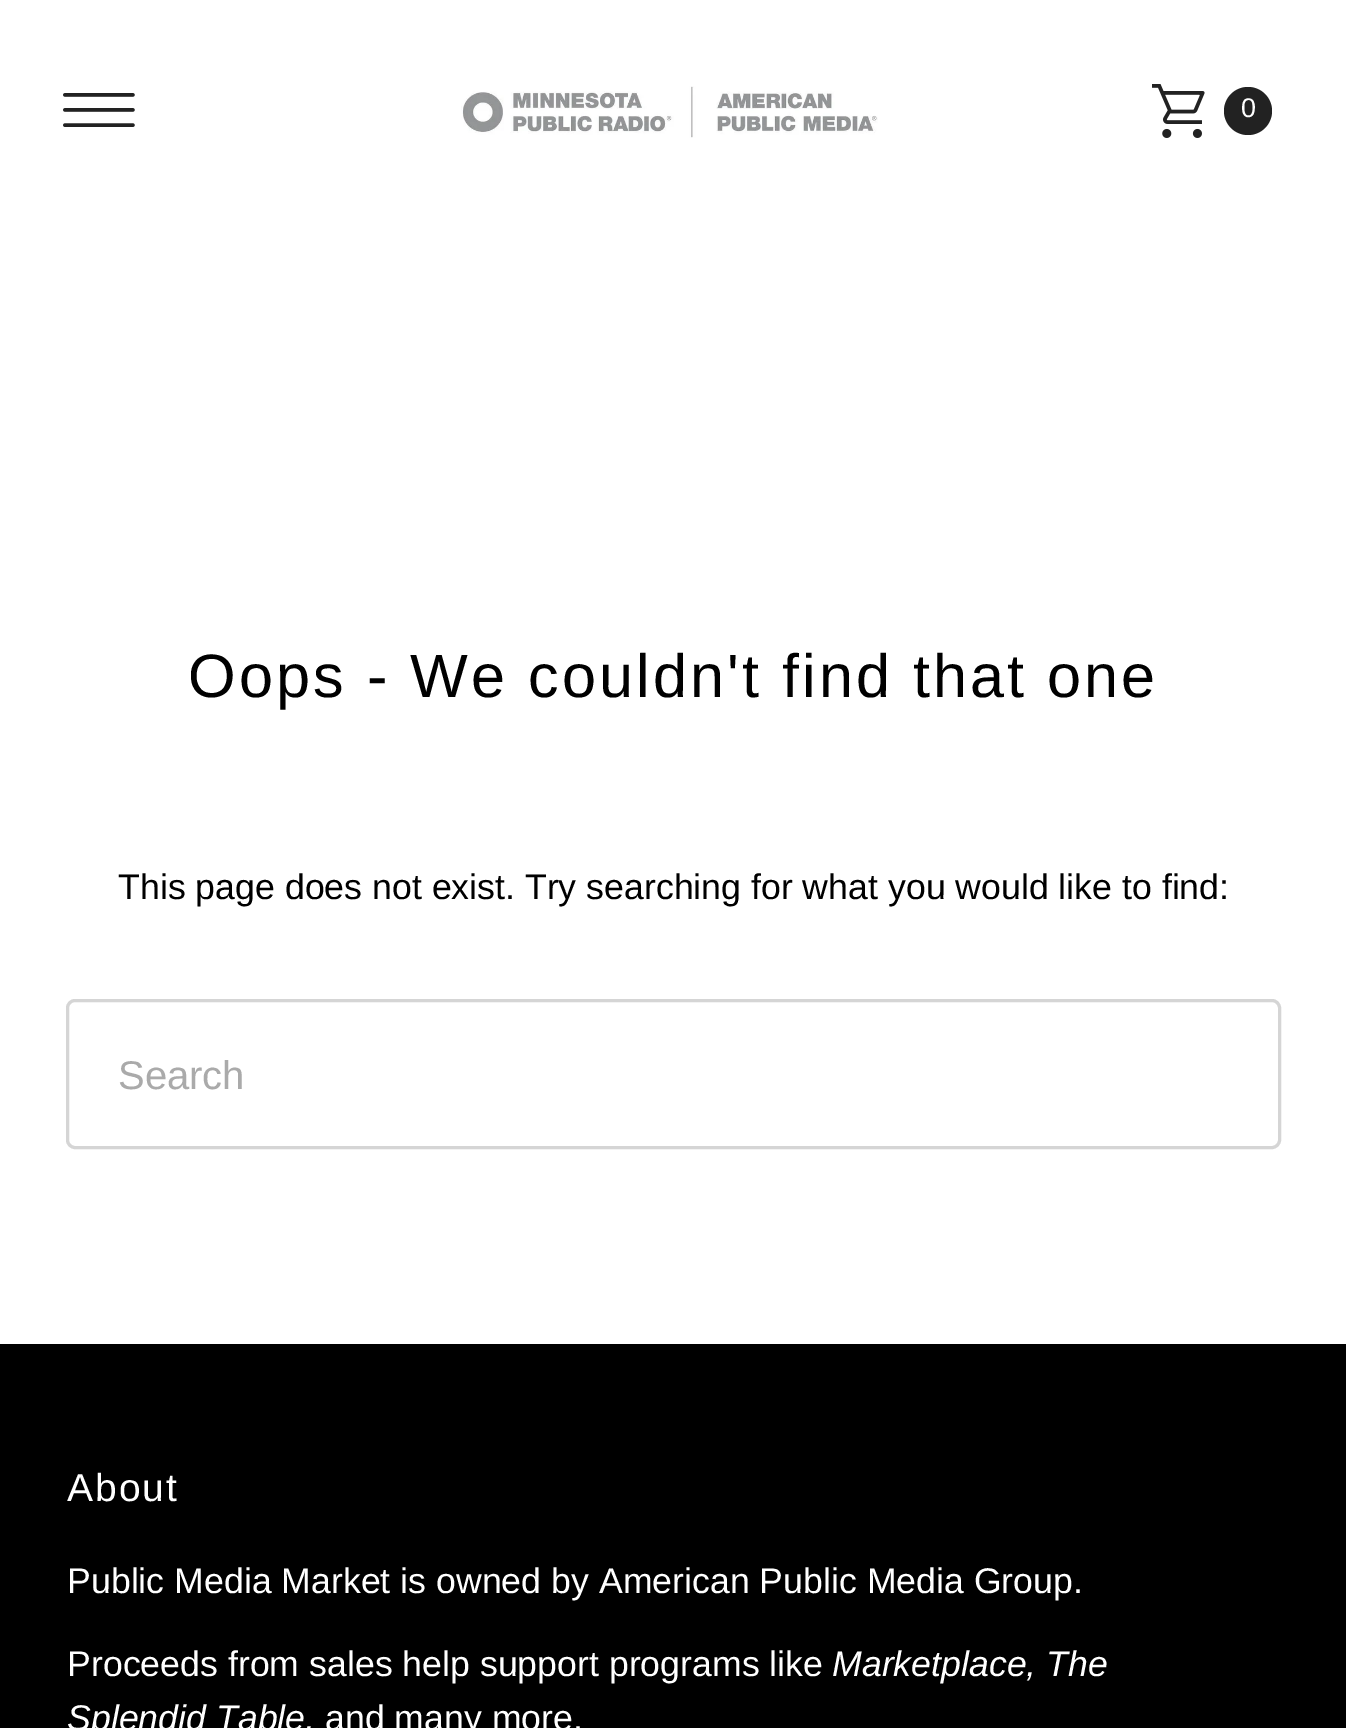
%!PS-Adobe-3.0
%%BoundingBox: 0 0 1346 1728
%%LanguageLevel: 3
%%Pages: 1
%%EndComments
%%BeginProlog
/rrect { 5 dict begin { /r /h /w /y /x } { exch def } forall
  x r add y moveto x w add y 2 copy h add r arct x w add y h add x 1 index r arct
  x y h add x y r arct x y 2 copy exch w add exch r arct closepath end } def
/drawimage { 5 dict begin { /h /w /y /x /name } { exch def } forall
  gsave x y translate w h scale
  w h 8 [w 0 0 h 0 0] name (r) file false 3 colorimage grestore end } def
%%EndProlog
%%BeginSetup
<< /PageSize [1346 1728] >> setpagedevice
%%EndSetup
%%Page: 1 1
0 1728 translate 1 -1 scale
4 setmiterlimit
1 setgray
0 0 1346 1728 rectfill
(images/1.raw) 63 93 72 34 drawimage
(images/2.raw) 461 86 417 52 drawimage
(images/3.raw) 1152 84 53 54 drawimage
0.133 setgray
newpath 1248 111 24 0 360 arc closepath fill
0.835 setgray
3 setlinewidth
67.5 1000.5 1212 147 7.5 rrect stroke
0 setgray
0 1344 1346 384 rectfill
/LiberationSans-Regular [27 0 0 -27 0 0] selectfont
1 setgray
1241 117 moveto (0) show
/LiberationSans-Regular [61.25 0 0 -61.25 0 0] selectfont
0 setgray
188 697 moveto 3.05 0 (Oops - We couldn't find that one) ashow
/LiberationSans-Regular [35.7 0 0 -35.7 0 0] selectfont
118 899 moveto (This page does not exist. Try searching for what you would like to find:) show
/LiberationSans-Regular [40 0 0 -40 0 0] selectfont
0.667 setgray
118 1089 moveto (Search) show
/LiberationSans-Regular [39 0 0 -39 0 0] selectfont
1 setgray
67 1501 moveto 2 0 (About) ashow
/LiberationSans-Regular [35.7 0 0 -35.7 0 0] selectfont
67 1593 moveto (Public Media Market is owned by American Public Media Group.) show
67 1676 moveto (Proceeds from sales help support programs like) show
/LiberationSans-Italic [35.7 0 0 -35.7 0 0] selectfont
832 1676 moveto (Marketplace, The) show
67 1730 moveto (Splendid Table,) show
/LiberationSans-Regular [35.7 0 0 -35.7 0 0] selectfont
325 1730 moveto (and many more.) show
showpage
%%EOF
